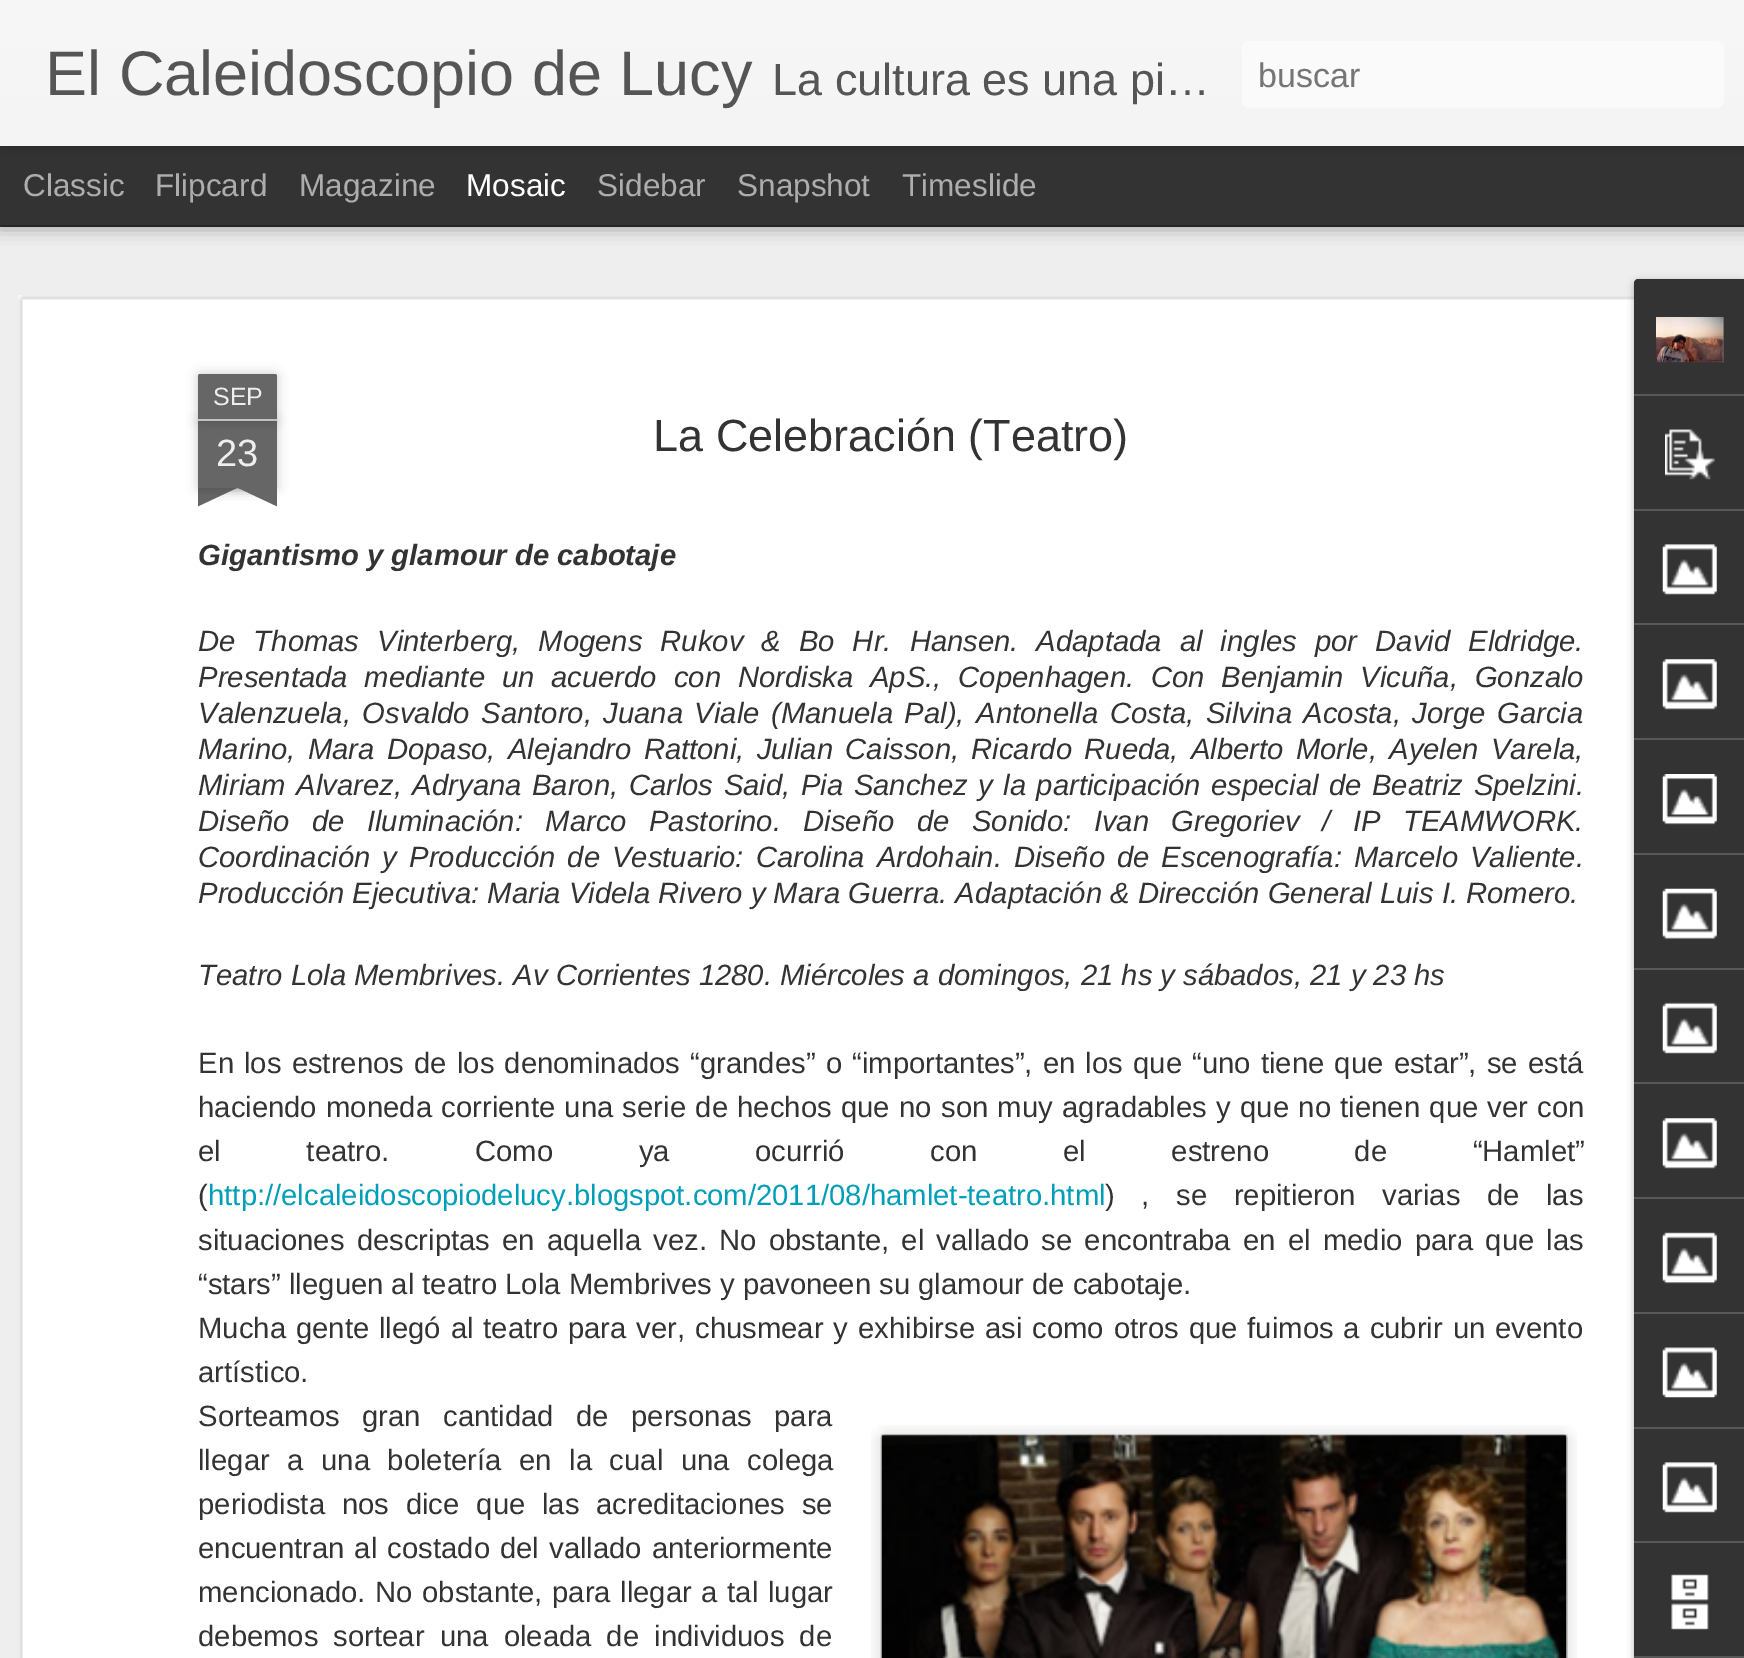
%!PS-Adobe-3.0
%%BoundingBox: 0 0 1744 1658
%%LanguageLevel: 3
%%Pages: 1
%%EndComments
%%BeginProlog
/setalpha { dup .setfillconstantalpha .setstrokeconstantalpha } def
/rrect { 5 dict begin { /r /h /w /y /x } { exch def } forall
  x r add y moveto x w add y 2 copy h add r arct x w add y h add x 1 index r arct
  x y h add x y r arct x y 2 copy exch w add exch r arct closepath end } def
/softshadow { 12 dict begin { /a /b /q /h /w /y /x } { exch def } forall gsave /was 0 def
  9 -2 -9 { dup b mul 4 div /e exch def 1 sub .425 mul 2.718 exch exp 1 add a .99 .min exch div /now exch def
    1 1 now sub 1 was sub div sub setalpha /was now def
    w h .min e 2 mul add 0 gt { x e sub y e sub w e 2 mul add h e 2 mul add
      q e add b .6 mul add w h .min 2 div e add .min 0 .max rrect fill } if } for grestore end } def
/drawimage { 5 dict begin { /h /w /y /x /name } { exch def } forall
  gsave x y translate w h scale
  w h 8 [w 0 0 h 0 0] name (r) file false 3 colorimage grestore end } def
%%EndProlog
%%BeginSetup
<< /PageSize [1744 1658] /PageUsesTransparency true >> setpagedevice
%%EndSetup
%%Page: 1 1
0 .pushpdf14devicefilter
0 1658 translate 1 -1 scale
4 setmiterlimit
0.2 setgray
0 0 1744 1658 rectfill
0.933 setgray
0 227 1744 1431 rectfill
0 setgray
0 146 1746 79 0 9 0.5 softshadow
0.2 setgray
0 146 1744 79 rectfill
0 setgray
0 0 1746 146 0 5.5 0.3 softshadow
gsave newpath 0 0 moveto 1744 0 lineto 1744 146 lineto 0 146 lineto closepath clip newpath
<< /ShadingType 2 /ColorSpace /DeviceRGB /Coords [0 0 0 146] /Extend [true true] /Function << /FunctionType 2 /Domain [0 1] /C0 [0.969 0.969 0.969] /C1 [0.957 0.957 0.957] /N 1 >> >> shfill grestore
0.98 setgray
1242 41 482 67 7 rrect fill
1 setgray
18 295 1616 1363 rectfill
(images/1.raw) 18 295 1616 1363 drawimage
0 setgray
198 421 79 67 0 5.5 0.2 softshadow
0.4 setgray
198 421 79 67 rectfill
0 setgray
198 374 79 47 2 5.5 0.2 softshadow
0.4 setgray
newpath 200 374 moveto 275 374 lineto 276 374 277 375 277 376 curveto 277 421 lineto 198 421 lineto 198 376 lineto 198 375 199 374 200 374 curveto closepath fill
0.761 setgray
198 419 79 2 rectfill
gsave
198 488 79 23 rectclip
0 setgray
178 466 112 22 0 5.5 0.2 softshadow
grestore
gsave
198 488 79 23 rectclip
0.4 setgray
newpath 178 491 moveto 280 443 lineto 290 463 lineto 188 511 lineto closepath fill
grestore
gsave
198 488 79 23 rectclip
0 setgray
185 466 112 22 0 5.5 0.2 softshadow
grestore
gsave
198 488 79 23 rectclip
0.4 setgray
newpath 195 443 moveto 296 491 lineto 287 511 lineto 185 463 lineto closepath fill
grestore
(images/2.raw) 871 1425 706 233 drawimage
(images/3.raw) 880 1434 688 224 drawimage
0 setgray
1634 281 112 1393 5 3.5 0.3 softshadow
0.2 setgray
newpath 1639 279 moveto 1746 279 lineto 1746 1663 lineto 1639 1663 lineto 1636 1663 1634 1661 1634 1658 curveto 1634 284 lineto 1634 281 1636 279 1639 279 curveto closepath fill
newpath 1639 279 moveto 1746 279 lineto 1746 394 lineto 1634 394 lineto 1634 284 lineto 1634 281 1636 279 1639 279 curveto closepath fill
(images/4.raw) 1656 317 68 46 drawimage
0.345 setgray
1634 394 110 2 rectfill
(images/5.raw) 1665 429 50 51 drawimage
1634 509 110 2 rectfill
(images/6.raw) 1662 544 55 51 drawimage
1634 623 110 2 rectfill
(images/7.raw) 1662 659 55 51 drawimage
1634 738 110 2 rectfill
(images/8.raw) 1662 774 55 51 drawimage
1634 853 110 2 rectfill
(images/9.raw) 1662 888 55 51 drawimage
1634 968 110 2 rectfill
(images/10.raw) 1662 1002 55 52 drawimage
1634 1082 110 2 rectfill
(images/11.raw) 1662 1118 55 51 drawimage
1634 1197 110 2 rectfill
(images/12.raw) 1662 1232 55 52 drawimage
1634 1312 110 2 rectfill
(images/13.raw) 1662 1347 55 51 drawimage
1634 1427 110 2 rectfill
(images/14.raw) 1662 1462 55 51 drawimage
1634 1541 110 2 rectfill
(images/15.raw) 1671 1574 38 56 drawimage
1634 1656 110 2 rectfill
/LiberationSans-Regular [63 0 0 -63 0 0] selectfont
0.333 setgray
45 95 moveto (El Caleidoscopio de Lucy) show
/LiberationSans-Regular [45 0 0 -45 0 0] selectfont
772 95 moveto (La cultura es una pi…) show
/LiberationSans-Regular [34 0 0 -34 0 0] selectfont
0.459 setgray
1258 87 moveto (buscar) show
/LiberationSans-Regular [31.5 0 0 -31.5 0 0] selectfont
0.678 setgray
23 196 moveto (Classic) show
155 196 moveto (Flipcard) show
299 196 moveto (Magazine) show
1 setgray
466 196 moveto (Mosaic) show
0.678 setgray
597 196 moveto (Sidebar) show
737 196 moveto (Snapshot) show
902 196 moveto (Timeslide) show
/LiberationSans-Regular [25 0 0 -25 0 0] selectfont
0.933 setgray
213 405 moveto (SEP) show
/LiberationSans-Regular [38 0 0 -38 0 0] selectfont
216 466 moveto (23) show
/LiberationSans-Regular [45 0 0 -45 0 0] selectfont
0.2 setgray
653 451 moveto (La Celebración \(Teatro\)) show
/LiberationSans-BoldItalic [29.25 0 0 -29.25 0 0] selectfont
198 565 moveto (Gigantismo y glamour de cabotaje) show
/LiberationSans-Italic [29.25 0 0 -29.25 0 0] selectfont
198 651 moveto 9.9 0 32 (De Thomas Vinterberg, Mogens Rukov & Bo Hr. Hansen. Adaptada al ingles por David Eldridge.) widthshow
198 687 moveto 8.75 0 32 (Presentada mediante un acuerdo con Nordiska ApS., Copenhagen. Con Benjamin Vicuña, Gonzalo) widthshow
198 723 moveto 3.4 0 32 (Valenzuela, Osvaldo Santoro, Juana Viale \(Manuela Pal\), Antonella Costa, Silvina Acosta, Jorge Garcia) widthshow
198 759 moveto 4.1 0 32 (Marino, Mara Dopaso, Alejandro Rattoni, Julian Caisson, Ricardo Rueda, Alberto Morle, Ayelen Varela,) widthshow
198 795 moveto 2.4 0 32 (Miriam Alvarez, Adryana Baron, Carlos Said, Pia Sanchez y la participación especial de Beatriz Spelzini.) widthshow
198 831 moveto 14.4 0 32 (Diseño de Iluminación: Marco Pastorino. Diseño de Sonido: Ivan Gregoriev / IP TEAMWORK.) widthshow
198 867 moveto 3.9 0 32 (Coordinación y Producción de Vestuario: Carolina Ardohain. Diseño de Escenografía: Marcelo Valiente.) widthshow
198 903 moveto (Producción Ejecutiva: Maria Videla Rivero y Mara Guerra. Adaptación & Dirección General Luis I. Romero.) show
198 985 moveto (Teatro Lola Membrives. Av Corrientes 1280. Miércoles a domingos, 21 hs y sábados, 21 y 23 hs) show
/LiberationSans-Regular [29.25 0 0 -29.25 0 0] selectfont
198 1073 moveto 2.1 0 32 (En los estrenos de los denominados “grandes” o “importantes”, en los que “uno tiene que estar”, se está) widthshow
198 1117 moveto 1.25 0 32 (haciendo moneda corriente una serie de hechos que no son muy agradables y que no tienen que ver con) widthshow
198 1161 moveto 77.5 0 32 (el teatro. Como ya ocurrió con el estreno de “Hamlet”) widthshow
198 1205 moveto (\() show
0 0.62 0.722 setrgbcolor
208 1205 moveto (http://elcaleidoscopiodelucy.blogspot.com/2011/08/hamlet-teatro.html) show
0.2 setgray
1105 1205 moveto 18.5 0 32 (\) , se repitieron varias de las) widthshow
198 1250 moveto 4.1 0 32 (situaciones descriptas en aquella vez. No obstante, el vallado se encontraba en el medio para que las) widthshow
198 1294 moveto (“stars” lleguen al teatro Lola Membrives y pavoneen su glamour de cabotaje.) show
198 1338 moveto 1.8 0 32 (Mucha gente llegó al teatro para ver, chusmear y exhibirse asi como otros que fuimos a cubrir un evento) widthshow
198 1382 moveto (artístico.) show
198 1426 moveto 14.4 0 32 (Sorteamos gran cantidad de personas para) widthshow
198 1470 moveto 9.5 0 32 (llegar a una boletería en la cual una colega) widthshow
198 1514 moveto 8.75 0 32 (periodista nos dice que las acreditaciones se) widthshow
198 1558 moveto 2 0 32 (encuentran al costado del vallado anteriormente) widthshow
198 1602 moveto 1.5 0 32 (mencionado. No obstante, para llegar a tal lugar) widthshow
198 1646 moveto 7 0 32 (debemos sortear una oleada de individuos de) widthshow
.poppdf14devicefilter showpage
%%EOF
